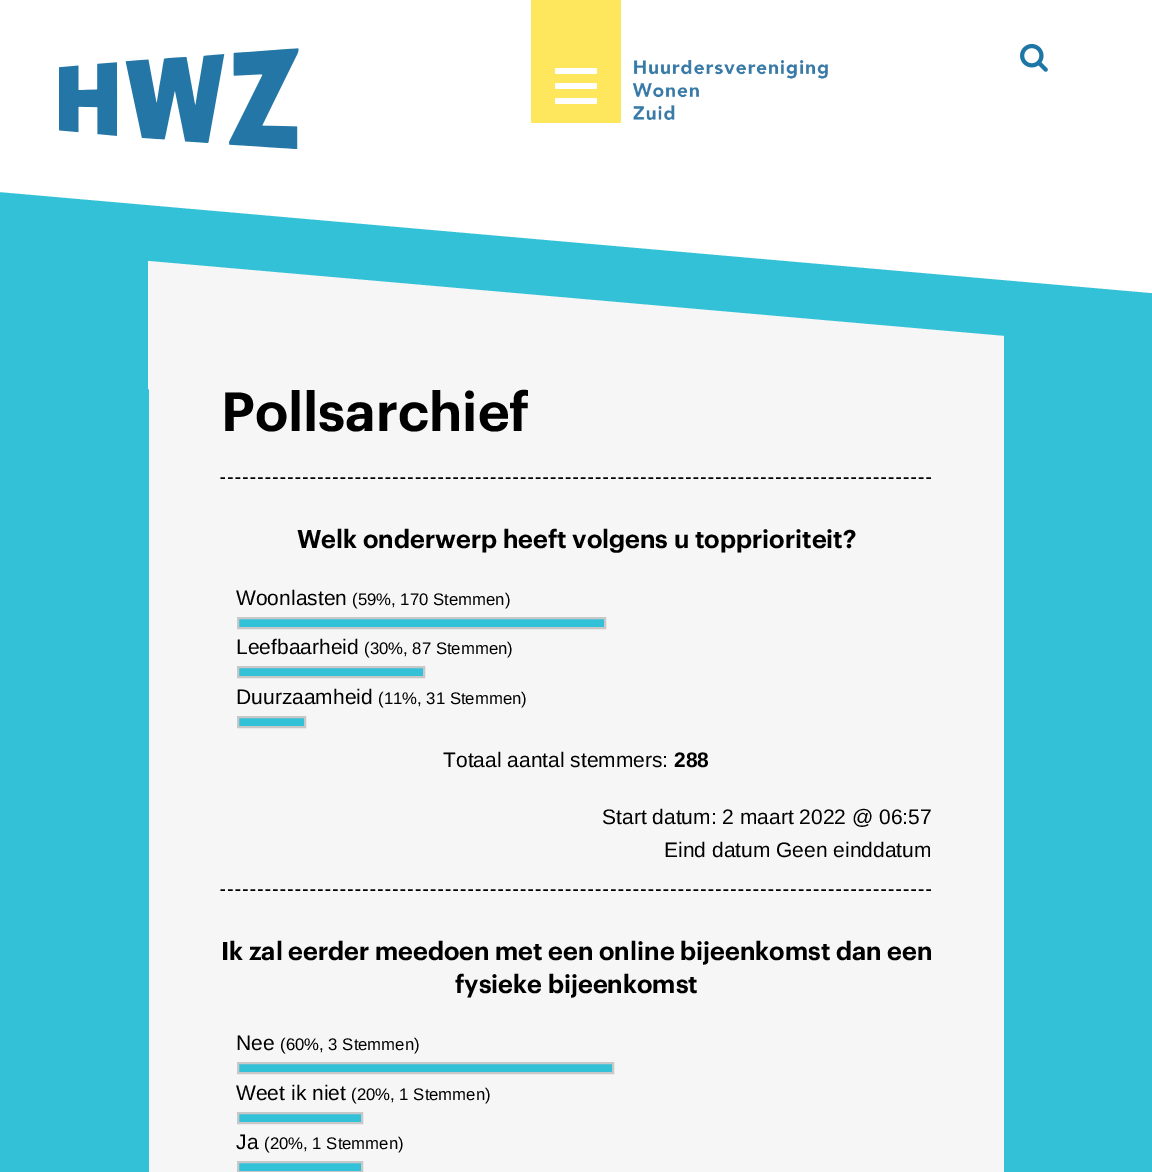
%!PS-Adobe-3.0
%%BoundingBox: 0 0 1152 1172
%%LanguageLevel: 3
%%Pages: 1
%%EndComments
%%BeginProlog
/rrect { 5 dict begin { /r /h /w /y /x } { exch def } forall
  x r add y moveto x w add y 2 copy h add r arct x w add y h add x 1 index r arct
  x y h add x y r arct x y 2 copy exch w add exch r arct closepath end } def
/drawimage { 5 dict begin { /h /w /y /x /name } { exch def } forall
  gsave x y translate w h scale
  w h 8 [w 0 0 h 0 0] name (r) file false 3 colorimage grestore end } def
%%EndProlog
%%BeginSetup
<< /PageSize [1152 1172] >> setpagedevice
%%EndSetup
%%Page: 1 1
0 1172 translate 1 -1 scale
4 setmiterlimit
0.2 0.757 0.843 setrgbcolor
0 0 1152 1172 rectfill
1 setgray
621 0 531 53 rectfill
0.965 setgray
newpath 148 261 moveto 1004 336 lineto 1004 464 lineto 148 389 lineto closepath fill
1 setgray
newpath 0 -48 moveto 1152 53 lineto 1152 293 lineto 0 192 lineto closepath fill
(images/1.raw) 59 48 240 101 drawimage
(images/2.raw) 1020 43 28 29 drawimage
0.996 0.902 0.365 setrgbcolor
531 0 90 123 rectfill
1 setgray
555 83 42 6 1.5 rrect fill
555 68 42 6 1.5 rrect fill
555 98 42 6 1.5 rrect fill
(images/3.raw) 633 60 195 60 drawimage
0.965 setgray
149 389 855 783 rectfill
0 setgray
1.5 setlinewidth
[4.5 3.01] 0 setdash
newpath 220.5 478 moveto 931.5 478 lineto stroke
0.2 0.757 0.843 setrgbcolor
newpath 238 618 moveto 605 618 lineto 605 628 lineto 238 628 lineto closepath gsave fill grestore
0.784 setgray
2 setlinewidth
[] 0 setdash
stroke
0.2 0.757 0.843 setrgbcolor
newpath 238 667 moveto 424 667 lineto 424 677 lineto 238 677 lineto closepath gsave fill grestore
0.784 setgray
stroke
0.2 0.757 0.843 setrgbcolor
newpath 238 717 moveto 305 717 lineto 305 727 lineto 238 727 lineto closepath gsave fill grestore
0.784 setgray
stroke
0 setgray
1.5 setlinewidth
[4.5 3.01] 0 setdash
newpath 220.5 890 moveto 931.5 890 lineto stroke
0.2 0.757 0.843 setrgbcolor
newpath 238 1063 moveto 613 1063 lineto 613 1073 lineto 238 1073 lineto closepath gsave fill grestore
0.784 setgray
2 setlinewidth
[] 0 setdash
stroke
0.2 0.757 0.843 setrgbcolor
newpath 238 1113 moveto 362 1113 lineto 362 1123 lineto 238 1123 lineto closepath gsave fill grestore
0.784 setgray
stroke
0.2 0.757 0.843 setrgbcolor
newpath 238 1162 moveto 362 1162 lineto 362 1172 lineto 238 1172 lineto closepath gsave fill grestore
0.784 setgray
stroke
/Graphik-SemiBold [54 0 0 -54 0 0] selectfont
0 setgray
221 431 moveto (Pollsarchief) show
/Graphik-SemiBold [25.2 0 0 -25.2 0 0] selectfont
297 548 moveto (Welk onderwerp heeft volgens u topprioriteit?) show
/LiberationSans-Regular [21 0 0 -21 0 0] selectfont
236 605 moveto (Woonlasten) show
/LiberationSans-Regular [16.75 0 0 -16.75 0 0] selectfont
352 605 moveto (\(59%, 170 Stemmen\)) show
/LiberationSans-Regular [21 0 0 -21 0 0] selectfont
236 654 moveto (Leefbaarheid) show
/LiberationSans-Regular [16.75 0 0 -16.75 0 0] selectfont
364 654 moveto (\(30%, 87 Stemmen\)) show
/LiberationSans-Regular [21 0 0 -21 0 0] selectfont
236 704 moveto (Duurzaamheid) show
/LiberationSans-Regular [16.75 0 0 -16.75 0 0] selectfont
378 704 moveto (\(11%, 31 Stemmen\)) show
/LiberationSans-Regular [21 0 0 -21 0 0] selectfont
443 767 moveto (Totaal aantal stemmers:) show
/LiberationSans-Bold [21 0 0 -21 0 0] selectfont
674 767 moveto (288) show
/LiberationSans-Regular [21 0 0 -21 0 0] selectfont
602 824 moveto (Start datum: 2 maart 2022 @ 06:57) show
664 857 moveto (Eind datum Geen einddatum) show
/Graphik-SemiBold [25.2 0 0 -25.2 0 0] selectfont
221 960 moveto (Ik zal eerder meedoen met een online bijeenkomst dan een) show
455 993 moveto (fysieke bijeenkomst) show
/LiberationSans-Regular [21 0 0 -21 0 0] selectfont
236 1050 moveto (Nee) show
/LiberationSans-Regular [16.75 0 0 -16.75 0 0] selectfont
280 1050 moveto (\(60%, 3 Stemmen\)) show
/LiberationSans-Regular [21 0 0 -21 0 0] selectfont
236 1100 moveto (Weet ik niet) show
/LiberationSans-Regular [16.75 0 0 -16.75 0 0] selectfont
351 1100 moveto (\(20%, 1 Stemmen\)) show
/LiberationSans-Regular [21 0 0 -21 0 0] selectfont
236 1149 moveto (Ja) show
/LiberationSans-Regular [16.75 0 0 -16.75 0 0] selectfont
264 1149 moveto (\(20%, 1 Stemmen\)) show
showpage
%%EOF
